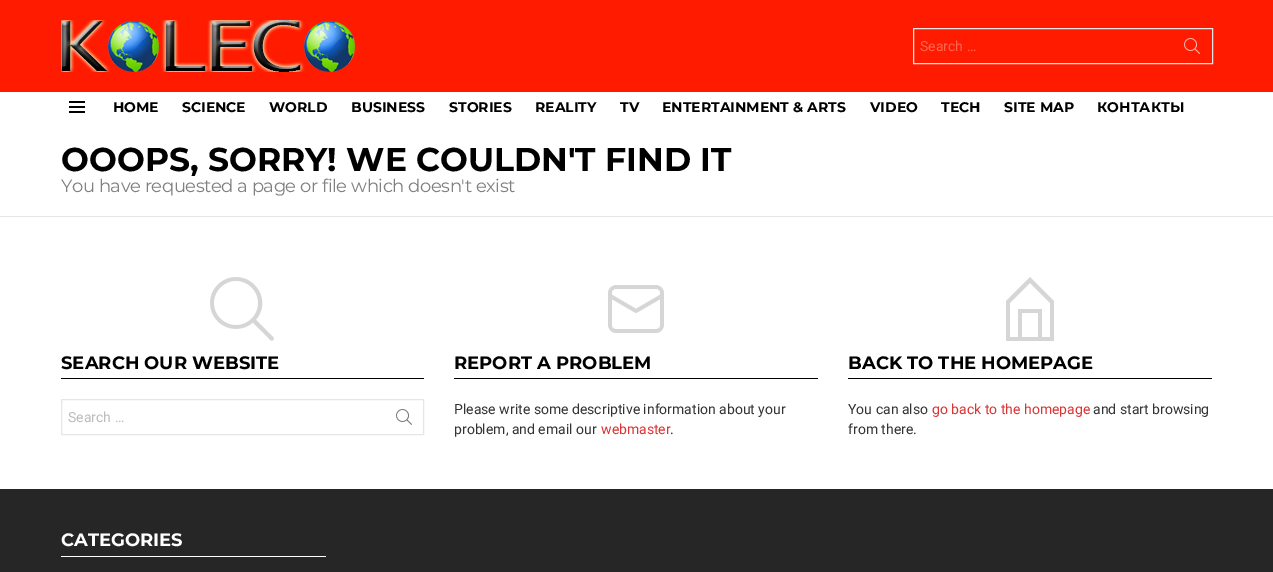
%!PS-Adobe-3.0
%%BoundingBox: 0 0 1273 572
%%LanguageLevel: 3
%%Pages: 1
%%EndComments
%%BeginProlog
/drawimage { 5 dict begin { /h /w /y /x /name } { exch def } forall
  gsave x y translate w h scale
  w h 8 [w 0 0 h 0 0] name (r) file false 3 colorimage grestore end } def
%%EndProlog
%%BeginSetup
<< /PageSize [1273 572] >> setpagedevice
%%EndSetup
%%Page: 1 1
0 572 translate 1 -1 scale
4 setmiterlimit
1 setgray
0 0 1273 572 rectfill
1 0.106 0 setrgbcolor
0 0 1273 92 rectfill
(images/1.raw) 61 20 294 52 drawimage
0.902 setgray
913.5 28.5 299 35 rectstroke
(images/2.raw) 1184 38 16 16 drawimage
(images/3.raw) 69 101 16 12 drawimage
0 216 1273 1 rectfill
(images/4.raw) 210 277 64 64 drawimage
0 setgray
61 378 363 1 rectfill
0.902 setgray
61.5 399.5 362 35 rectstroke
(images/5.raw) 396 409 16 16 drawimage
(images/6.raw) 608 285 56 48 drawimage
0 setgray
454 378 364 1 rectfill
0.839 setgray
newpath 1030 277 moveto 1006 301 lineto 1006 341 lineto 1054 341 lineto 1054 301 lineto closepath 1038 337 moveto 1022 337 lineto 1022 313 lineto 1038 313 lineto closepath 1050 337 moveto 1042 337 lineto 1042 309 lineto 1018 309 lineto 1018 337 lineto 1010 337 lineto 1010 303 lineto 1030 283 lineto 1050 303 lineto closepath fill
0 setgray
848 378 364 1 rectfill
0.149 setgray
0 489 1273 83 rectfill
1 setgray
61 556 265 1 rectfill
/Roboto-Regular [14 0 0 -14 0 0] selectfont
1 0.4 0.329 setrgbcolor
920 51 moveto (Search …) show
/Montserrat-Bold [14 0 0 -14 0 0] selectfont
0 setgray
113 112 moveto (HOME) show
182 112 moveto (SCIENCE) show
269 112 moveto (WORLD) show
351 112 moveto (BUSINESS) show
449 112 moveto (STORIES) show
535 112 moveto (REALITY) show
620 112 moveto (TV) show
662 112 moveto (ENTERTAINMENT & ARTS) show
870 112 moveto (VIDEO) show
941 112 moveto (TECH) show
1004 112 moveto (SITE MAP) show
1097 112 moveto (КОНТАКТЫ) show
/Montserrat-Bold [33 0 0 -33 0 0] selectfont
61 171 moveto (OOOPS, SORRY! WE COULDN'T FIND IT) show
/Montserrat-Regular [18 0 0 -18 0 0] selectfont
0.502 setgray
61 192 moveto -0.45 0 (You have requested a page or file which doesn't exist) ashow
/Montserrat-Bold [18 0 0 -18 0 0] selectfont
0 setgray
61 369 moveto (SEARCH OUR WEBSITE) show
/Roboto-Regular [14 0 0 -14 0 0] selectfont
0.737 setgray
68 422 moveto (Search …) show
/Montserrat-Bold [18 0 0 -18 0 0] selectfont
0 setgray
454 369 moveto (REPORT A PROBLEM) show
/Roboto-Regular [14 0 0 -14 0 0] selectfont
0.2 setgray
454 414 moveto (Please write some descriptive information about your) show
454 434 moveto (problem, and email our) show
0.867 0.2 0.2 setrgbcolor
601 434 moveto (webmaster) show
0.2 setgray
670 434 moveto (.) show
/Montserrat-Bold [18 0 0 -18 0 0] selectfont
0 setgray
848 369 moveto (BACK TO THE HOMEPAGE) show
/Roboto-Regular [14 0 0 -14 0 0] selectfont
0.2 setgray
848 414 moveto (You can also) show
0.867 0.2 0.2 setrgbcolor
932 414 moveto (go back to the homepage) show
0.2 setgray
1093 414 moveto (and start browsing) show
848 434 moveto (from there.) show
/Montserrat-Bold [18 0 0 -18 0 0] selectfont
1 setgray
61 546 moveto (CATEGORIES) show
showpage
%%EOF
